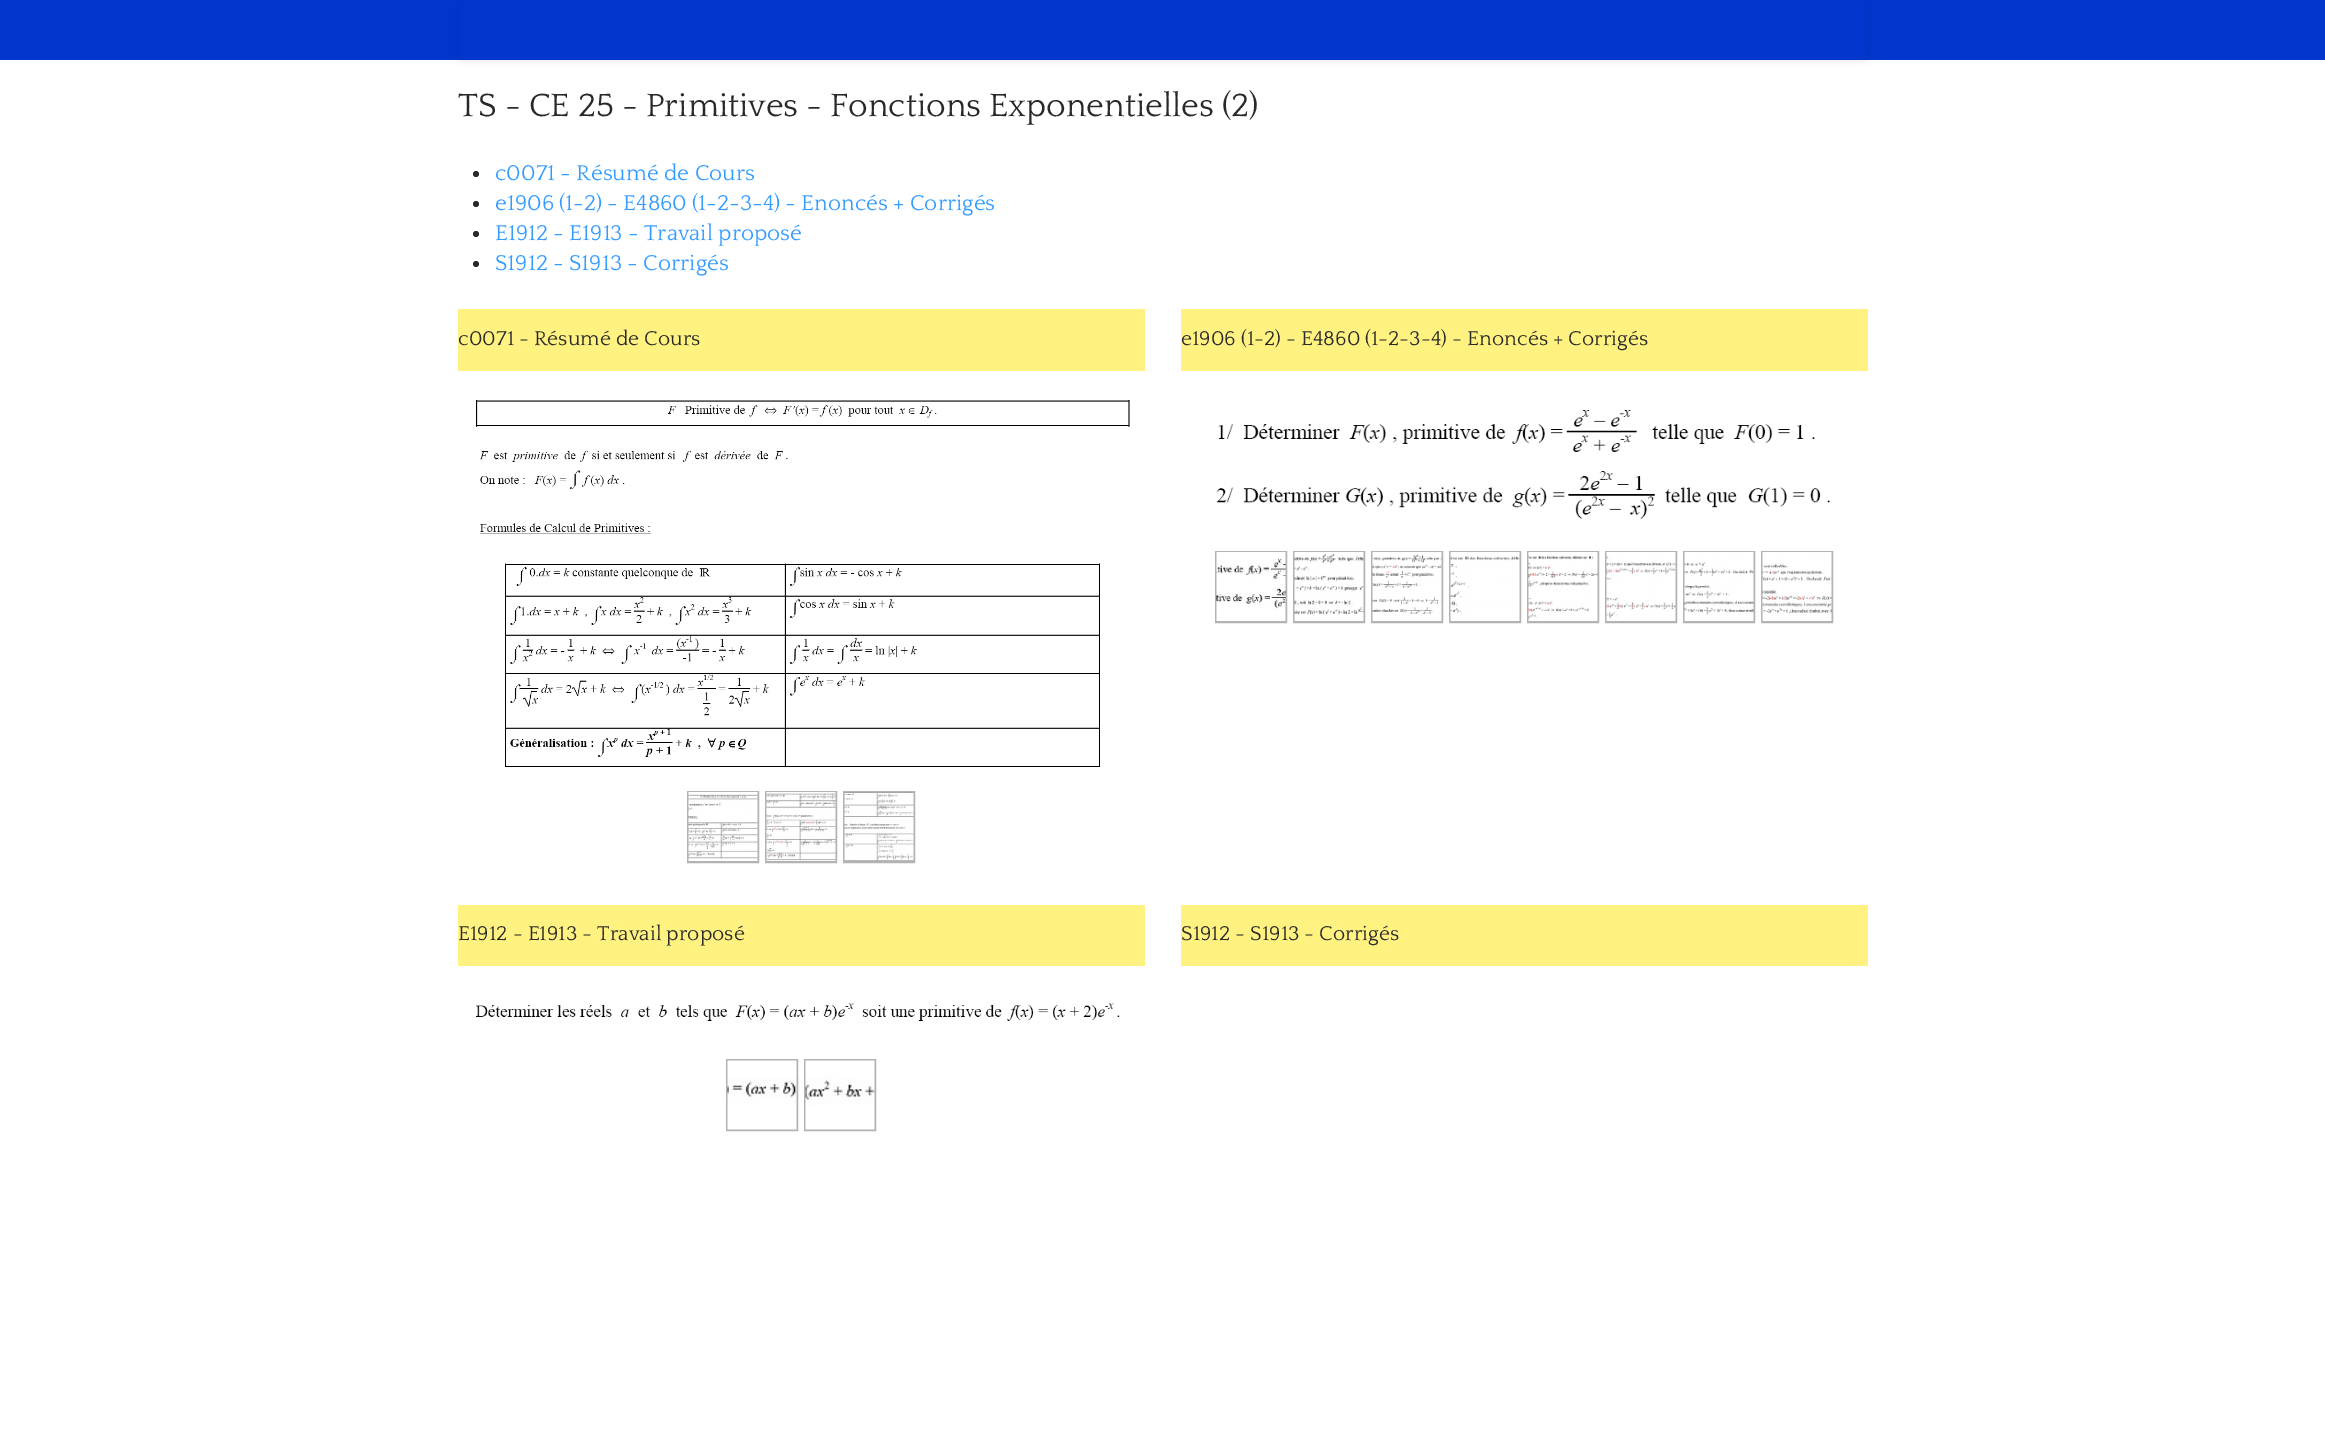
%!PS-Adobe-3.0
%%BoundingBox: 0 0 2325 1443
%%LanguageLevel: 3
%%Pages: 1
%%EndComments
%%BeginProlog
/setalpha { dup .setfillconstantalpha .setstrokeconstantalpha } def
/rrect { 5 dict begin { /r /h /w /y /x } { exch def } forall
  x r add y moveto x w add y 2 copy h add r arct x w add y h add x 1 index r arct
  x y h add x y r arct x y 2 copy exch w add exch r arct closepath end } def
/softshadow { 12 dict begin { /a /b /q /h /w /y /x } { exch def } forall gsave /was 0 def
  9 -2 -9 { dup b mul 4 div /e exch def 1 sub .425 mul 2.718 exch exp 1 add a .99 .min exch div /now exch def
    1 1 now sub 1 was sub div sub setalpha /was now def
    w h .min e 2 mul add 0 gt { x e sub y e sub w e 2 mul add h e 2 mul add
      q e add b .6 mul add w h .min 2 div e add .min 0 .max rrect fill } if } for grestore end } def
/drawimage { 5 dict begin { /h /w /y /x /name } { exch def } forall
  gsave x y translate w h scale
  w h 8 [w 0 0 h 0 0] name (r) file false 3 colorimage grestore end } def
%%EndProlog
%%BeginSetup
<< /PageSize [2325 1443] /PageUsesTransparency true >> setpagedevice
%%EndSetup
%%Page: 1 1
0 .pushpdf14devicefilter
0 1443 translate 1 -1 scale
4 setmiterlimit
1 setgray
0 0 2325 1443 rectfill
0 0.212 0.8 setrgbcolor
0 0 2325 60 rectfill
gsave
newpath 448 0 moveto 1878 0 lineto 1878 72 lineto 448 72 lineto closepath 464 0 moveto 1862 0 lineto 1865.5 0 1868 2.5 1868 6 curveto 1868 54 lineto 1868 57.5 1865.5 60 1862 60 curveto 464 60 lineto 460.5 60 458 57.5 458 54 curveto 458 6 lineto 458 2.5 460.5 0 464 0 curveto closepath eoclip newpath
0 setgray
458 2 1410 60 6 3 0.07 softshadow
grestore
0.161 setgray
newpath 476 174 3 0 360 arc closepath fill
newpath 476 204 3 0 360 arc closepath fill
newpath 476 234 3 0 360 arc closepath fill
newpath 476 264 3 0 360 arc closepath fill
1 0.949 0.502 setrgbcolor
458 309 687 62 rectfill
(images/1.raw) 476 400 654 367 drawimage
0.702 setgray
2 setlinewidth
688 792 70 70 rectstroke
766 792 70 70 rectstroke
844 792 70 70 rectstroke
(images/2.raw) 688 792 70 69 drawimage
(images/3.raw) 766 792 70 69 drawimage
(images/4.raw) 844 792 70 69 drawimage
1 0.949 0.502 setrgbcolor
1181 309 687 62 rectfill
(images/5.raw) 1216 410 615 109 drawimage
0.702 setgray
1216 552 70 70 rectstroke
1294 552 70 70 rectstroke
1372 552 70 70 rectstroke
1450 552 70 70 rectstroke
1528 552 70 70 rectstroke
1606 552 70 70 rectstroke
1684 552 70 70 rectstroke
1762 552 70 70 rectstroke
(images/6.raw) 1216 552 70 69 drawimage
(images/7.raw) 1294 552 70 69 drawimage
(images/8.raw) 1372 552 70 69 drawimage
(images/9.raw) 1450 552 70 69 drawimage
(images/10.raw) 1528 552 70 69 drawimage
(images/11.raw) 1606 552 70 69 drawimage
(images/12.raw) 1684 552 70 69 drawimage
(images/13.raw) 1762 552 70 69 drawimage
1 0.949 0.502 setrgbcolor
458 905 687 61 rectfill
(images/14.raw) 475 1003 645 18 drawimage
0.702 setgray
727 1060 70 70 rectstroke
805 1060 70 70 rectstroke
(images/15.raw) 727 1060 70 70 drawimage
(images/16.raw) 805 1060 70 70 drawimage
1 0.949 0.502 setrgbcolor
1181 905 687 61 rectfill
/Quattrocento-Regular [33.75 0 0 -33.75 0 0] selectfont
0.161 setgray
458 116 moveto (TS - CE 25 - Primitives - Fonctions Exponentielles \(2\)) show
/Quattrocento-Regular [22.5 0 0 -22.5 0 0] selectfont
0.2 0.612 1 setrgbcolor
495 180 moveto (c0071 - Résumé de Cours) show
495 210 moveto (e1906 \(1-2\) - E4860 \(1-2-3-4\) - Enoncés + Corrigés) show
495 240 moveto (E1912 - E1913 - Travail proposé) show
495 270 moveto (S1912 - S1913 - Corrigés) show
/Quattrocento-Regular [21 0 0 -21 0 0] selectfont
0.161 setgray
458 345 moveto (c0071 - Résumé de Cours) show
1181 345 moveto (e1906 \(1-2\) - E4860 \(1-2-3-4\) - Enoncés + Corrigés) show
458 940 moveto (E1912 - E1913 - Travail proposé) show
1181 940 moveto (S1912 - S1913 - Corrigés) show
.poppdf14devicefilter showpage
%%EOF
